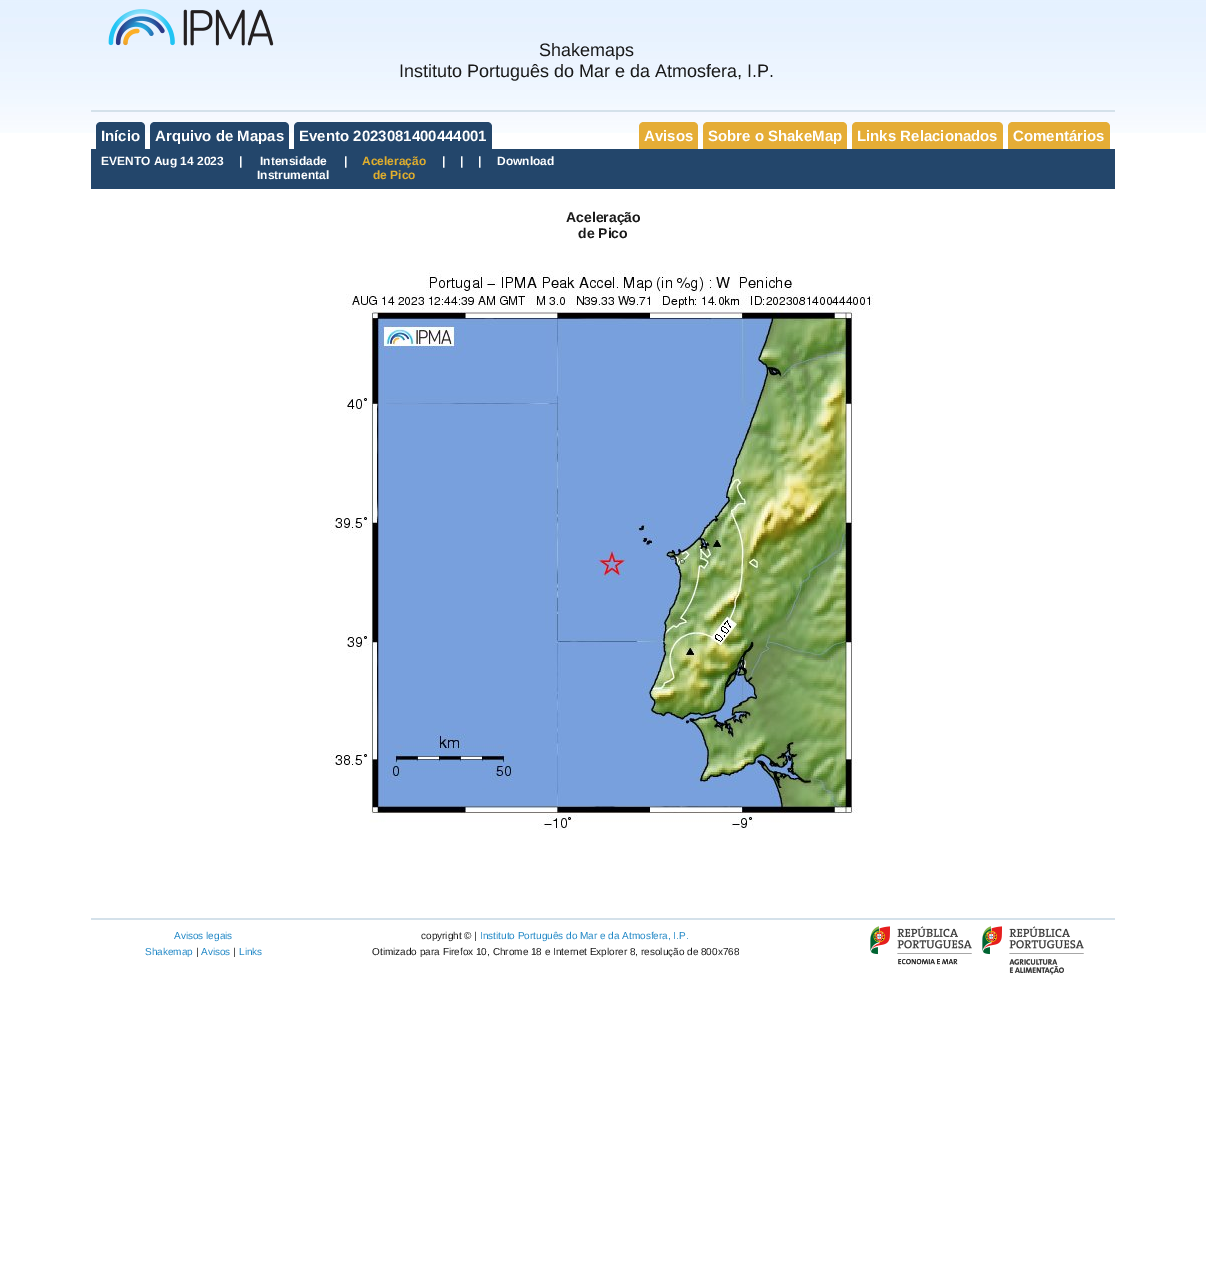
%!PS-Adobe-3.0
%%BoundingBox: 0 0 1206 1279
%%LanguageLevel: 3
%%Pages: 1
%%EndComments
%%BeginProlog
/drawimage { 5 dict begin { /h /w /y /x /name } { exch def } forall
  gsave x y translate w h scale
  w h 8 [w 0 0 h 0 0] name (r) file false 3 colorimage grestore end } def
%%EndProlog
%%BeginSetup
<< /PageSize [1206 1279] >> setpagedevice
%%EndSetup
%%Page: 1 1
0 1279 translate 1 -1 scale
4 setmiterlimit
1 setgray
0 0 1206 1279 rectfill
(images/1.raw) 0 0 1206 133 drawimage
0.831 0.882 0.918 setrgbcolor
91 110 1024 2 rectfill
(images/2.raw) 108 9 166 37 drawimage
0.137 0.275 0.42 setrgbcolor
newpath 101 122 moveto 140 122 lineto 143 122 145 124 145 127 curveto 145 149 lineto 96 149 lineto 96 127 lineto 96 124 98 122 101 122 curveto closepath fill
newpath 155 122 moveto 284 122 lineto 287 122 289 124 289 127 curveto 289 149 lineto 150 149 lineto 150 127 lineto 150 124 152 122 155 122 curveto closepath fill
newpath 299 122 moveto 487 122 lineto 490 122 492 124 492 127 curveto 492 149 lineto 294 149 lineto 294 127 lineto 294 124 296 122 299 122 curveto closepath fill
0.898 0.678 0.212 setrgbcolor
newpath 644 122 moveto 693 122 lineto 696 122 698 124 698 127 curveto 698 149 lineto 639 149 lineto 639 127 lineto 639 124 641 122 644 122 curveto closepath fill
newpath 708 122 moveto 842 122 lineto 845 122 847 124 847 127 curveto 847 149 lineto 703 149 lineto 703 127 lineto 703 124 705 122 708 122 curveto closepath fill
newpath 857 122 moveto 998 122 lineto 1001 122 1003 124 1003 127 curveto 1003 149 lineto 852 149 lineto 852 127 lineto 852 124 854 122 857 122 curveto closepath fill
newpath 1013 122 moveto 1105 122 lineto 1108 122 1110 124 1110 127 curveto 1110 149 lineto 1008 149 lineto 1008 127 lineto 1008 124 1010 122 1013 122 curveto closepath fill
0.137 0.275 0.42 setrgbcolor
91 149 1024 40 rectfill
(images/3.raw) 330 270 544 560 drawimage
0.831 0.882 0.918 setrgbcolor
91 918 1024 2 rectfill
(images/4.raw) 870 926 102 39 drawimage
(images/5.raw) 982 926 102 49 drawimage
/LiberationSans-Regular [18 0 0 -18 0 0] selectfont
0.098 setgray
539 56 moveto (Shakemaps) show
399 77 moveto (Instituto Português do Mar e da Atmosfera, I.P.) show
/LiberationSans-Bold [15 0 0 -15 0 0] selectfont
1 setgray
101 141 moveto (Início) show
155 141 moveto (Arquivo de Mapas) show
299 141 moveto (Evento 2023081400444001) show
644 141 moveto (Avisos) show
708 141 moveto (Sobre o ShakeMap) show
857 141 moveto (Links Relacionados) show
1013 141 moveto (Comentários) show
/LiberationSans-Bold [12 0 0 -12 0 0] selectfont
101 165 moveto (EVENTO Aug 14 2023) show
239 165 moveto (|) show
260 165 moveto (Intensidade) show
257 179 moveto (Instrumental) show
344 165 moveto (|) show
0.878 0.682 0.176 setrgbcolor
362 165 moveto (Aceleração) show
373 179 moveto (de Pico) show
1 setgray
442 165 moveto (|) show
460 165 moveto (|) show
478 165 moveto (|) show
497 165 moveto (Download) show
/LiberationSans-Bold [14 0 0 -14 0 0] selectfont
0.098 setgray
566 222 moveto (Aceleração) show
578 238 moveto (de Pico) show
/LiberationSans-Regular [10 0 0 -10 0 0] selectfont
0.122 0.529 0.776 setrgbcolor
174 939 moveto (Avisos legais) show
145 955 moveto (Shakemap) show
0.098 setgray
196 955 moveto (|) show
0.122 0.529 0.776 setrgbcolor
201 955 moveto (Avisos) show
0.098 setgray
233 955 moveto (|) show
0.122 0.529 0.776 setrgbcolor
239 955 moveto (Links) show
0.098 setgray
421 939 moveto (copyright © |) show
0.122 0.529 0.776 setrgbcolor
480 939 moveto (Instituto Português do Mar e da Atmosfera, I.P.) show
0.098 setgray
372 955 moveto (Otimizado para Firefox 10, Chrome 18 e Internet Explorer 8, resolução de 800x768) show
showpage
%%EOF
